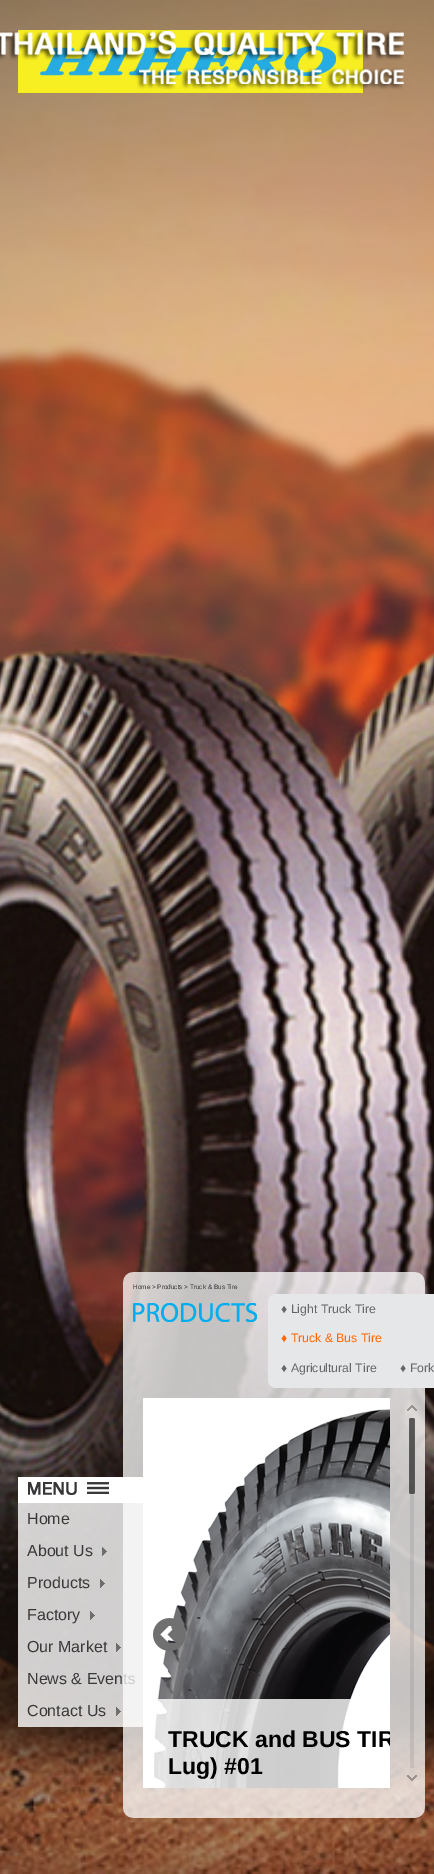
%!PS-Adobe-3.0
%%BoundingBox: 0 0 434 1874
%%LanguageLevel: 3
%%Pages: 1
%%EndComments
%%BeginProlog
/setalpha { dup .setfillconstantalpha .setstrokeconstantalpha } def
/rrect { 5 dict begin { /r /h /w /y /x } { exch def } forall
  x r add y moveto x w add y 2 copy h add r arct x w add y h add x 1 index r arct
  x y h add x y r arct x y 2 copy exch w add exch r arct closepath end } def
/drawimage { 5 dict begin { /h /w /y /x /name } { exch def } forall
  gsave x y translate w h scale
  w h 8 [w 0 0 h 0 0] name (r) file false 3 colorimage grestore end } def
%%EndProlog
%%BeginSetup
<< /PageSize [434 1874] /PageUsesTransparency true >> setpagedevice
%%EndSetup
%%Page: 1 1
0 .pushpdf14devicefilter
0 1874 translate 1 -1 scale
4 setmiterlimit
1 setgray
0 0 434 1874 rectfill
(images/1.raw) 0 0 434 1874 drawimage
(images/3.raw) 18 30 345 63 drawimage
(images/2.raw) 0 29 404 61 drawimage
18 1477 125 26 rectfill
(images/4.raw) 28 1482 81 13 drawimage
0.8 setalpha
18 1503 125 224 rectfill
1 setalpha
(images/5.raw) 102 1547 5 9 drawimage
(images/6.raw) 100 1579 5 9 drawimage
(images/7.raw) 90 1611 5 9 drawimage
(images/8.raw) 116 1643 5 9 drawimage
(images/9.raw) 116 1707 5 9 drawimage
(images/10.raw) 123 1272 302 546 drawimage
(images/11.raw) 133 1303 124 19 drawimage
0.902 0.906 0.91 setrgbcolor
268 1294 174 94 8 rrect fill
(images/13.raw) 143 1398 247 390 drawimage
(images/12.raw) 153 1618 33 33 drawimage
0.8 setalpha
1 setgray
153 1699 198 89 rectfill
1 setalpha
(images/14.raw) 407 1405 10 6 drawimage
0.08 setalpha
0 setgray
410 1418 4 350 rectfill
0.56 setalpha
409 1418 6 76 2 rrect fill
1 setalpha
(images/15.raw) 407 1775 10 6 drawimage
/LiberationSans-Regular [16 0 0 -16 0 0] selectfont
0.224 setgray
27 1524 moveto (Home) show
27 1556 moveto (About Us) show
27 1588 moveto (Products) show
27 1620 moveto (Factory) show
27 1652 moveto (Our Market) show
27 1684 moveto (News & Even) show
27 1716 moveto (Contact Us) show
/LiberationSans-Regular [6.4 0 0 -6.4 0 0] selectfont
0.2 setgray
133 1289 moveto (Home > Products > Truck & Bus Tire) show
/LiberationSans-Regular [12.25 0 0 -12.25 0 0] selectfont
0.4 setgray
281 1313 moveto (♦ Light Truck Tire) show
1 0.4 0 setrgbcolor
281 1342 moveto (♦ Truck & Bus Tire) show
0.4 setgray
281 1372 moveto (♦ Agricultural Tire) show
400 1372 moveto (♦ Fork) show
gsave
143 1398 247 390 rectclip
/LiberationSans-Bold [23 0 0 -23 0 0] selectfont
0 setgray
168 1747 moveto (TRUCK and BUS TIR) show
grestore
/LiberationSans-Bold [23 0 0 -23 0 0] selectfont
0 setgray
168 1774 moveto (Lug\) #01) show
.poppdf14devicefilter showpage
%%EOF
